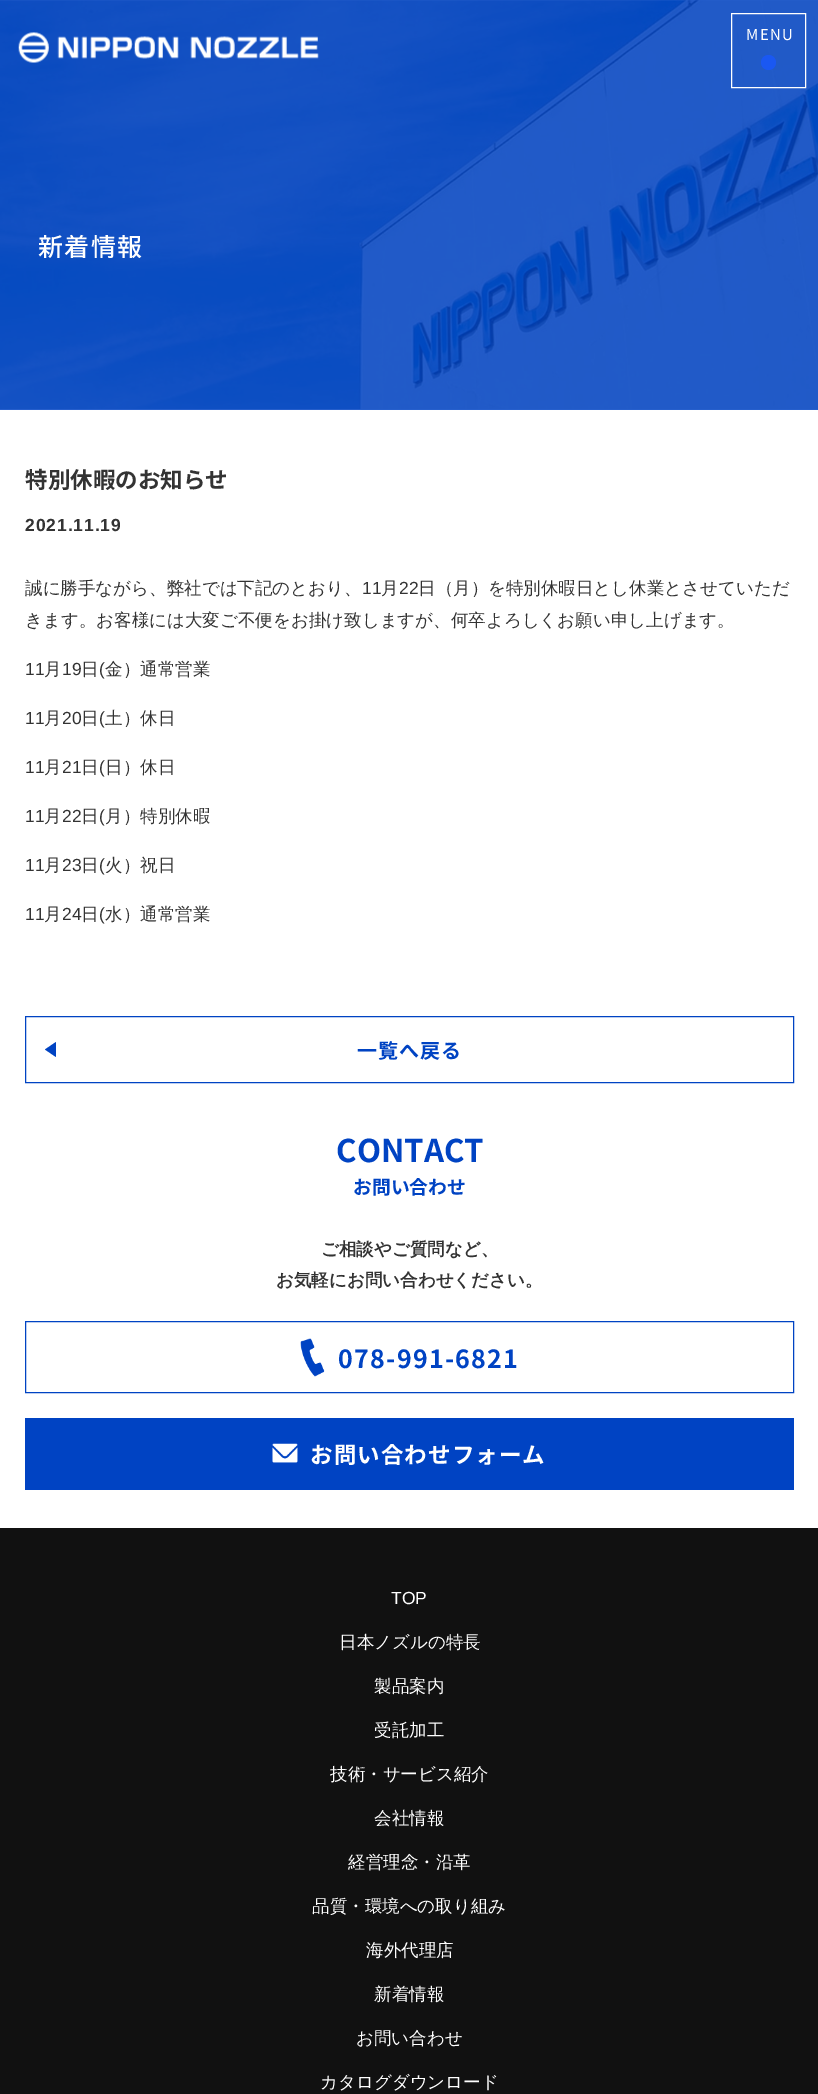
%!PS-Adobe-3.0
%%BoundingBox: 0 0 818 2094
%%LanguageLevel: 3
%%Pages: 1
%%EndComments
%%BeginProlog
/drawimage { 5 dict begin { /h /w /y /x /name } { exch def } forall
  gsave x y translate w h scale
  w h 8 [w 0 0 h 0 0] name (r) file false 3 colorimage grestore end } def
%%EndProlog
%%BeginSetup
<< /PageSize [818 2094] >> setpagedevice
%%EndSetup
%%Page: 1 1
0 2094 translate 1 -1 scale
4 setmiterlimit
1 setgray
0 0 818 2094 rectfill
0.149 0.373 0.8 setrgbcolor
0 0 818 410 rectfill
(images/2.raw) 0 0 818 410 drawimage
(images/1.raw) 18 32 301 31 drawimage
1 setgray
731.5 13.5 74 74 rectstroke
0.102 0.345 0.949 setrgbcolor
newpath 768.5 62.5 7.5 0 360 arc closepath fill
0 0.263 0.765 setrgbcolor
25.5 1016.5 768 66 rectstroke
newpath 56 1057 moveto 56 1042 lineto 45 1049.5 lineto closepath fill
25.5 1321.5 768 71 rectstroke
(images/3.raw) 300 1338 25 39 drawimage
25 1418 769 72 rectfill
(images/4.raw) 272 1443 26 20 drawimage
0.067 setgray
0 1528 818 566 rectfill
/NotoSansJP-Regular [15 0 0 -15 0 0] selectfont
1 setgray
746 40 moveto 1.5 0 (MENU) ashow
/NotoSansJP-Medium [25 0 0 -25 0 0] selectfont
38 256 moveto 1.25 0 (新着情報) ashow
/NotoSansJP-Bold [22.5 0 0 -22.5 0 0] selectfont
0.2 setgray
25 488 moveto (特別休暇のお知らせ) show
/LiberationSans-Bold [17.5 0 0 -17.5 0 0] selectfont
25 531 moveto 0.9 0 (2021.11.19) ashow
/WenQuanYiZenHei-Medium [17.5 0 0 -17.5 0 0] selectfont
25 594 moveto (誠に勝手ながら、弊社では下記のとおり、) show
/LiberationSans-Regular [17.5 0 0 -17.5 0 0] selectfont
362 594 moveto (11) show
/WenQuanYiZenHei-Medium [17.5 0 0 -17.5 0 0] selectfont
381 594 moveto (月) show
/LiberationSans-Regular [17.5 0 0 -17.5 0 0] selectfont
399 594 moveto (22) show
/WenQuanYiZenHei-Medium [17.5 0 0 -17.5 0 0] selectfont
418 594 moveto (日（月）を特別休暇日とし休業とさせていただ) show
25 626 moveto (きます。お客様には大変ご不便をお掛け致しますが、何卒よろしくお願い申し上げます。) show
/LiberationSans-Regular [17.5 0 0 -17.5 0 0] selectfont
25 675 moveto (11) show
/WenQuanYiZenHei-Medium [17.5 0 0 -17.5 0 0] selectfont
44 675 moveto (月) show
/LiberationSans-Regular [17.5 0 0 -17.5 0 0] selectfont
62 675 moveto (19) show
/WenQuanYiZenHei-Medium [17.5 0 0 -17.5 0 0] selectfont
81 675 moveto (日) show
/LiberationSans-Regular [17.5 0 0 -17.5 0 0] selectfont
99 675 moveto (\() show
/WenQuanYiZenHei-Medium [17.5 0 0 -17.5 0 0] selectfont
105 675 moveto (金）通常営業) show
/LiberationSans-Regular [17.5 0 0 -17.5 0 0] selectfont
25 724 moveto (11) show
/WenQuanYiZenHei-Medium [17.5 0 0 -17.5 0 0] selectfont
44 724 moveto (月) show
/LiberationSans-Regular [17.5 0 0 -17.5 0 0] selectfont
62 724 moveto (20) show
/WenQuanYiZenHei-Medium [17.5 0 0 -17.5 0 0] selectfont
81 724 moveto (日) show
/LiberationSans-Regular [17.5 0 0 -17.5 0 0] selectfont
99 724 moveto (\() show
/WenQuanYiZenHei-Medium [17.5 0 0 -17.5 0 0] selectfont
105 724 moveto (土）休日) show
/LiberationSans-Regular [17.5 0 0 -17.5 0 0] selectfont
25 773 moveto (11) show
/WenQuanYiZenHei-Medium [17.5 0 0 -17.5 0 0] selectfont
44 773 moveto (月) show
/LiberationSans-Regular [17.5 0 0 -17.5 0 0] selectfont
62 773 moveto (21) show
/WenQuanYiZenHei-Medium [17.5 0 0 -17.5 0 0] selectfont
81 773 moveto (日) show
/LiberationSans-Regular [17.5 0 0 -17.5 0 0] selectfont
99 773 moveto (\() show
/WenQuanYiZenHei-Medium [17.5 0 0 -17.5 0 0] selectfont
105 773 moveto (日）休日) show
/LiberationSans-Regular [17.5 0 0 -17.5 0 0] selectfont
25 822 moveto (11) show
/WenQuanYiZenHei-Medium [17.5 0 0 -17.5 0 0] selectfont
44 822 moveto (月) show
/LiberationSans-Regular [17.5 0 0 -17.5 0 0] selectfont
62 822 moveto (22) show
/WenQuanYiZenHei-Medium [17.5 0 0 -17.5 0 0] selectfont
81 822 moveto (日) show
/LiberationSans-Regular [17.5 0 0 -17.5 0 0] selectfont
99 822 moveto (\() show
/WenQuanYiZenHei-Medium [17.5 0 0 -17.5 0 0] selectfont
105 822 moveto (月）特別休暇) show
/LiberationSans-Regular [17.5 0 0 -17.5 0 0] selectfont
25 871 moveto (11) show
/WenQuanYiZenHei-Medium [17.5 0 0 -17.5 0 0] selectfont
44 871 moveto (月) show
/LiberationSans-Regular [17.5 0 0 -17.5 0 0] selectfont
62 871 moveto (23) show
/WenQuanYiZenHei-Medium [17.5 0 0 -17.5 0 0] selectfont
81 871 moveto (日) show
/LiberationSans-Regular [17.5 0 0 -17.5 0 0] selectfont
99 871 moveto (\() show
/WenQuanYiZenHei-Medium [17.5 0 0 -17.5 0 0] selectfont
105 871 moveto (火）祝日) show
/LiberationSans-Regular [17.5 0 0 -17.5 0 0] selectfont
25 920 moveto (11) show
/WenQuanYiZenHei-Medium [17.5 0 0 -17.5 0 0] selectfont
44 920 moveto (月) show
/LiberationSans-Regular [17.5 0 0 -17.5 0 0] selectfont
62 920 moveto (24) show
/WenQuanYiZenHei-Medium [17.5 0 0 -17.5 0 0] selectfont
81 920 moveto (日) show
/LiberationSans-Regular [17.5 0 0 -17.5 0 0] selectfont
99 920 moveto (\() show
/WenQuanYiZenHei-Medium [17.5 0 0 -17.5 0 0] selectfont
105 920 moveto (水）通常営業) show
/NotoSansJP-Bold [20 0 0 -20 0 0] selectfont
0 0.263 0.765 setrgbcolor
357 1058 moveto 1 0 (一覧へ戻る) ashow
/NotoSansJP-Bold [31.25 0 0 -31.25 0 0] selectfont
336 1162 moveto (CONTACT) show
/NotoSansJP-Bold [18.75 0 0 -18.75 0 0] selectfont
353 1194 moveto (お問い合わせ) show
/WenQuanYiZenHei-Bold [17.5 0 0 -17.5 0 0] selectfont
0.2 setgray
321 1255 moveto (ご相談やご質問など、) show
276 1286 moveto (お気軽にお問い合わせください。) show
/NotoSansJP-Bold [25 0 0 -25 0 0] selectfont
0 0.263 0.765 setrgbcolor
338 1368 moveto 1.25 0 (078-991-6821) ashow
/NotoSansJP-Bold [22.5 0 0 -22.5 0 0] selectfont
1 setgray
310 1463 moveto 1.1 0 (お問い合わせフォーム) ashow
/LiberationSans-Regular [17.5 0 0 -17.5 0 0] selectfont
391 1604 moveto (TOP) show
/WenQuanYiZenHei-Medium [17.5 0 0 -17.5 0 0] selectfont
339 1648 moveto (日本ノズルの特長) show
374 1692 moveto (製品案内) show
374 1736 moveto (受託加工) show
330 1780 moveto (技術・サービス紹介) show
374 1824 moveto (会社情報) show
348 1868 moveto (経営理念・沿革) show
312 1912 moveto (品質・環境への取り組み) show
366 1956 moveto (海外代理店) show
374 2000 moveto (新着情報) show
356 2044 moveto (お問い合わせ) show
320 2088 moveto (カタログダウンロード) show
showpage
%%EOF
